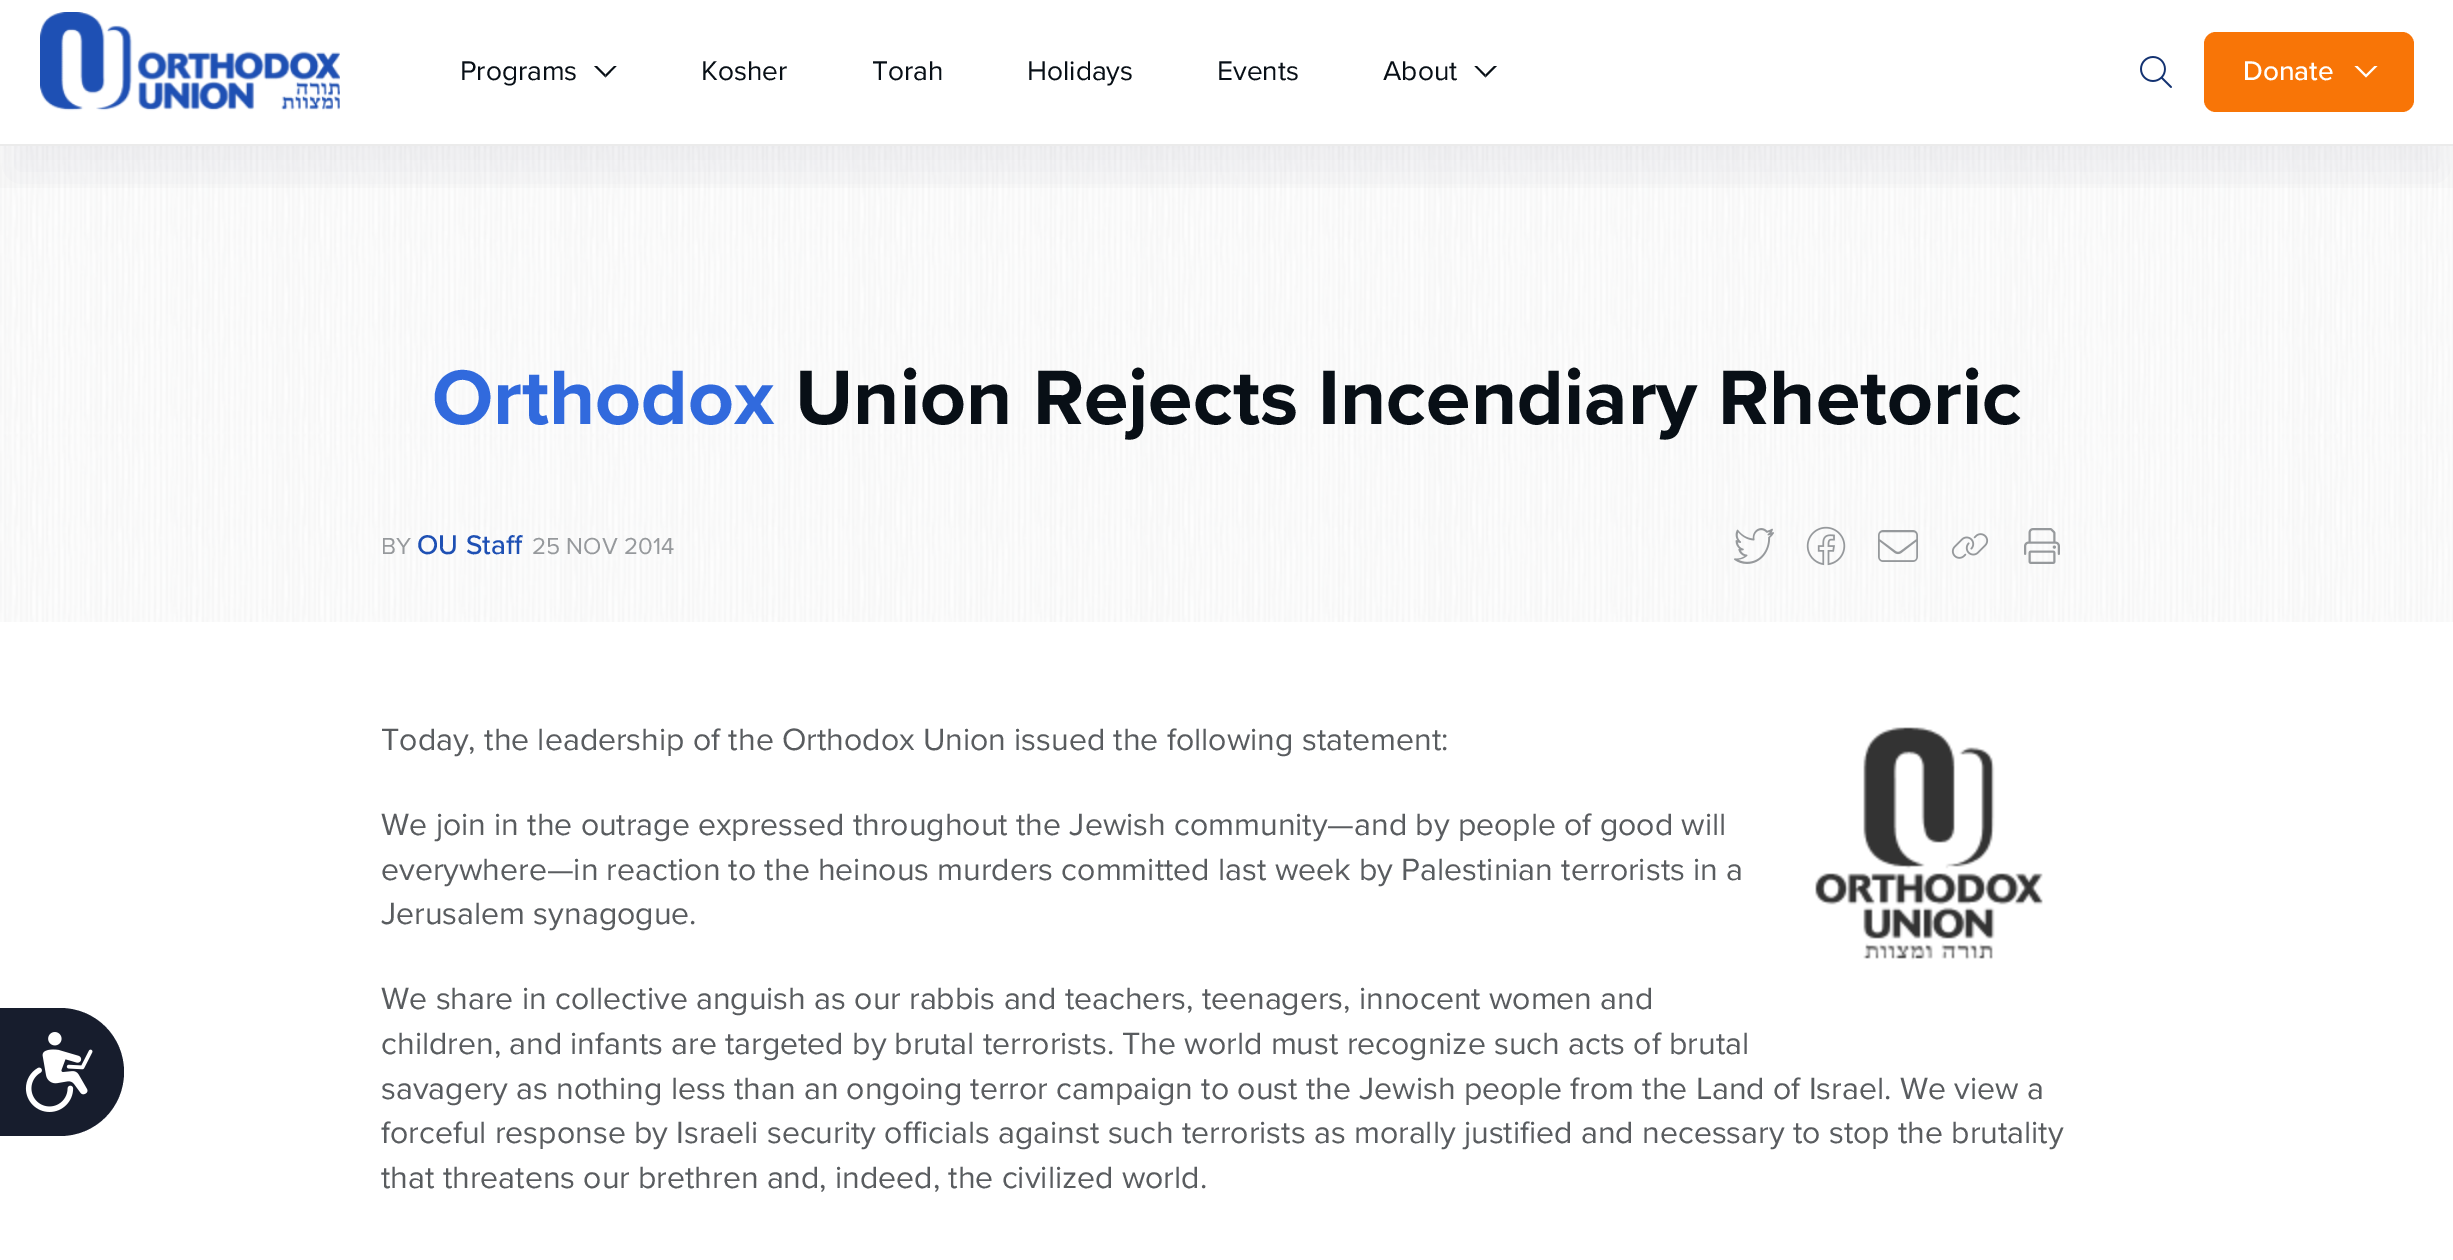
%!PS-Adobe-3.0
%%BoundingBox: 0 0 2453 1260
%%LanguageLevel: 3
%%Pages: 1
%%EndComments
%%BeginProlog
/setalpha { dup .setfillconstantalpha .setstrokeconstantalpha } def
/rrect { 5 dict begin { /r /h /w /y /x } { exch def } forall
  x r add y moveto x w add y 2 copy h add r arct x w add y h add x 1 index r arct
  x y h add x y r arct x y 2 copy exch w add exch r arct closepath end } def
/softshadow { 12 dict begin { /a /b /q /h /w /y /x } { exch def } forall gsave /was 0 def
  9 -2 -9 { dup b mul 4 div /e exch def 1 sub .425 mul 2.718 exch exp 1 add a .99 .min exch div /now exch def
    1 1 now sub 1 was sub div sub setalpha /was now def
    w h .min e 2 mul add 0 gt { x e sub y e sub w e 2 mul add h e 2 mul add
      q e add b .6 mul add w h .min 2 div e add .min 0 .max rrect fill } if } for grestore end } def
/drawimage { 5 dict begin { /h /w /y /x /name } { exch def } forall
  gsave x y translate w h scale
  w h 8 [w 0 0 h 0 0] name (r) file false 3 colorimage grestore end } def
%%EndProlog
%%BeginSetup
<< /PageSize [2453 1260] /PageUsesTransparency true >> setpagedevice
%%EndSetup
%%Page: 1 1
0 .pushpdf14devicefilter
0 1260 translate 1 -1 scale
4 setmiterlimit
1 setgray
0 0 2453 1260 rectfill
(images/3.raw) 0 146 2453 476 drawimage
gsave
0 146 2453 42 rectclip
0.063 0.094 0.157 setrgbcolor
8 48 2438 130 0 24 0.06 softshadow
grestore
0.922 setgray
0 144 2453 2 rectfill
(images/1.raw) 40 12 300 99 drawimage
0.031 0.059 0.086 setrgbcolor
newpath 616.5 66 moveto 605.5 77.5 lineto 605.5 74.5 lineto 614 66 lineto closepath fill
newpath 605.5 77.5 moveto 594 66 lineto 597 66 lineto 605.5 74.5 lineto closepath fill
newpath 1497 66 moveto 1485.5 77.5 lineto 1485.5 74.5 lineto 1494 66 lineto closepath fill
newpath 1485.5 77.5 moveto 1474.5 66 lineto 1477 66 lineto 1485.5 74.5 lineto closepath fill
(images/2.raw) 2140 56 32 32 drawimage
0.973 0.459 0.027 setrgbcolor
2204 32 210 80 12 rrect fill
1 setgray
newpath 2377.5 66 moveto 2366 77.5 lineto 2366 74.5 lineto 2374.5 66 lineto closepath 2366 77.5 moveto 2354.5 66 lineto 2357.5 66 lineto 2366 74.5 lineto closepath fill
(images/4.raw) 1734 528 40 36 drawimage
(images/5.raw) 1806 526 40 40 drawimage
(images/6.raw) 1878 530 40 32 drawimage
(images/7.raw) 1951 533 38 26 drawimage
(images/8.raw) 2024 528 36 36 drawimage
0.09 0.114 0.176 setrgbcolor
newpath 0 1008 moveto 60 1008 lineto 95.5 1008 124 1036.5 124 1072 curveto 124 1107.5 95.5 1136 60 1136 curveto 0 1136 lineto closepath fill
(images/9.raw) 25 1032 68 80 drawimage
(images/10.raw) 1815 727 228 233 drawimage
/ProximaNova-Regular [28 0 0 -28 0 0] selectfont
0.031 0.059 0.086 setrgbcolor
460 80 moveto (Programs) show
701 80 moveto (Kosher) show
872 80 moveto (Torah) show
1027 80 moveto (Holidays) show
1217 80 moveto (Events) show
1383 80 moveto (About) show
/ProximaNova-Medium [28 0 0 -28 0 0] selectfont
1 setgray
2243 80 moveto (Donate) show
/ProximaNova-Bold [80 0 0 -80 0 0] selectfont
0.192 0.416 0.867 setrgbcolor
432 424 moveto (Orthodox) show
0.031 0.059 0.086 setrgbcolor
795 424 moveto (Union Rejects Incendiary Rhetoric) show
/ProximaNova-Regular [24 0 0 -24 0 0] selectfont
0.588 0.6 0.612 setrgbcolor
381 554 moveto (BY) show
/ProximaNova-Medium [28 0 0 -28 0 0] selectfont
0.118 0.314 0.706 setrgbcolor
417 554 moveto (OU Staff) show
/ProximaNova-Regular [24 0 0 -24 0 0] selectfont
0.588 0.6 0.612 setrgbcolor
532 554 moveto (25 NOV 2014) show
/ProximaNova-Regular [32 0 0 -32 0 0] selectfont
0.349 0.361 0.373 setrgbcolor
381 750 moveto (Today, the leadership of the Orthodox Union issued the following statement:) show
381 835 moveto (We join in the outrage expressed throughout the Jewish community—and by people of good will) show
381 880 moveto (everywhere—in reaction to the heinous murders committed last week by Palestinian terrorists in a) show
381 924 moveto (Jerusalem synagogue.) show
381 1009 moveto (We share in collective anguish as our rabbis and teachers, teenagers, innocent women and) show
381 1054 moveto (children, and infants are targeted by brutal terrorists. The world must recognize such acts of brutal) show
381 1099 moveto (savagery as nothing less than an ongoing terror campaign to oust the Jewish people from the Land of Israel. We view a) show
381 1143 moveto (forceful response by Israeli security officials against such terrorists as morally justified and necessary to stop the brutality) show
381 1188 moveto (that threatens our brethren and, indeed, the civilized world.) show
.poppdf14devicefilter showpage
%%EOF
